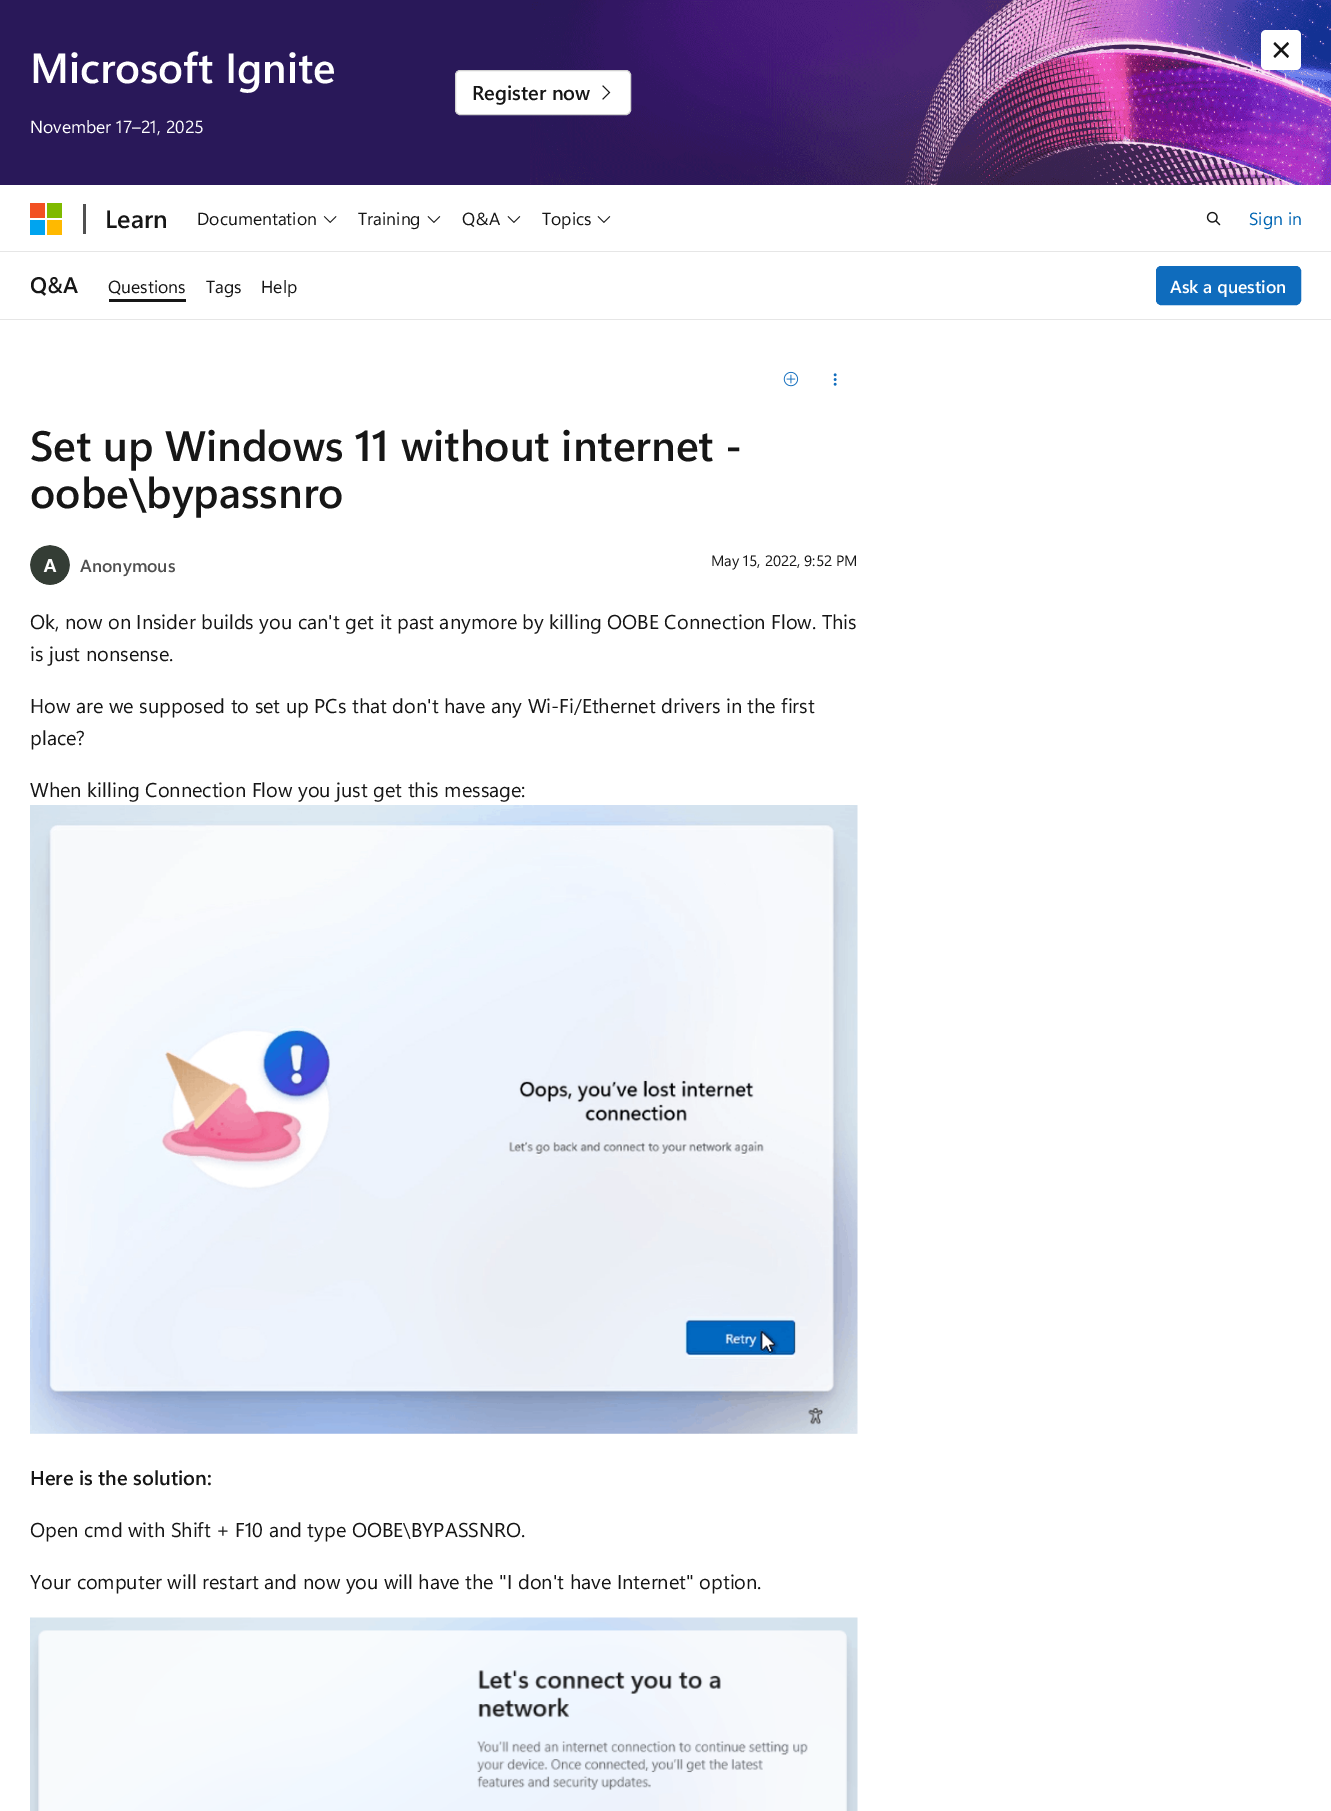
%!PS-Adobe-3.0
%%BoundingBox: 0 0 1331 1811
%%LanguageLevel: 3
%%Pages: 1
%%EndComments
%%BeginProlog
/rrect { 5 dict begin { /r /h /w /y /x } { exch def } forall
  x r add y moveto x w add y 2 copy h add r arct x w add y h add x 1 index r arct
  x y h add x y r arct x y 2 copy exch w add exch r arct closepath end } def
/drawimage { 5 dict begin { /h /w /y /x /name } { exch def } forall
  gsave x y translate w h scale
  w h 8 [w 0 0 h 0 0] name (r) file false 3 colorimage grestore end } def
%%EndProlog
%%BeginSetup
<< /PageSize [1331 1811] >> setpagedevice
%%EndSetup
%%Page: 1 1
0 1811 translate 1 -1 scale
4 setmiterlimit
1 setgray
0 0 1331 1811 rectfill
0.161 0.094 0.349 setrgbcolor
0 0 530 185 rectfill
(images/1.raw) 530 0 801 185 drawimage
1 setgray
455.5 70.5 175 44 4.5 rrect gsave fill grestore
0.82 setgray
stroke
(images/2.raw) 602 85 9 15 drawimage
1 setgray
1261 30 40 40 5 rrect fill
0.086 setgray
newpath 1275 42 moveto 1289 56 lineto 1287.5 58 lineto 1273.5 44 lineto closepath fill
newpath 1287.5 42 moveto 1289 44 lineto 1275 58 lineto 1273.5 56 lineto closepath fill
0.902 setgray
0 251 1331 1 rectfill
0.949 0.314 0.133 setrgbcolor
30 203 15 15 rectfill
0.498 0.729 0 setrgbcolor
47 203 15 15 rectfill
0 0.643 0.937 setrgbcolor
30 220 15 15 rectfill
1 0.725 0 setrgbcolor
47 220 15 15 rectfill
0.314 setgray
83 204 3 30 rectfill
(images/3.raw) 323 216 14 7 drawimage
(images/4.raw) 427 216 14 7 drawimage
(images/4.raw) 507 216 14 7 drawimage
(images/4.raw) 597 216 14 7 drawimage
(images/5.raw) 1206 211 15 15 drawimage
0.902 setgray
0 319 1331 1 rectfill
0.086 setgray
109 299 77 3 rectfill
0.059 0.424 0.741 setrgbcolor
1156.5 266.5 144 38 4.5 rrect gsave fill grestore
stroke
(images/6.raw) 783 371 16 16 drawimage
(images/7.raw) 833 373 4 13 drawimage
0.949 setgray
newpath 50 565 20 0 360 arc closepath fill
(images/8.raw) 30 545 40 40 drawimage
(images/9.raw) 30 805 828 629 drawimage
(images/10.raw) 30 1617 828 194 drawimage
/SegoeUI-SemiBold [42 0 0 -42 0 0] selectfont
1 setgray
30 83 moveto (Microsoft Ignite) show
/SegoeUI-Regular [17.5 0 0 -17.5 0 0] selectfont
30 133 moveto (November 17–21, 2025) show
/SegoeUI-SemiBold [20 0 0 -20 0 0] selectfont
0.086 setgray
472 100 moveto (Register now) show
/SegoeUI-SemiBold [25 0 0 -25 0 0] selectfont
105 228 moveto (Learn) show
/SegoeUI-Regular [17.5 0 0 -17.5 0 0] selectfont
197 225 moveto (Documentation) show
358 225 moveto (Training) show
462 225 moveto (Q&A) show
542 225 moveto (Topics) show
0 0.396 0.702 setrgbcolor
1249 225 moveto (Sign in) show
/SegoeUI-SemiBold [22.5 0 0 -22.5 0 0] selectfont
0.086 setgray
30 293 moveto (Q&A) show
/SegoeUI-Regular [17.5 0 0 -17.5 0 0] selectfont
108 293 moveto (Questions) show
206 293 moveto (Tags) show
261 293 moveto (Help) show
/SegoeUI-SemiBold [17.5 0 0 -17.5 0 0] selectfont
1 setgray
1170 293 moveto (Ask a question) show
/SegoeUI-SemiBold [42.5 0 0 -42.5 0 0] selectfont
0.086 setgray
30 461 moveto (Set up Windows 11 without internet -) show
30 508 moveto (oobe\\bypassnro) show
/SegoeUI-SemiBold [17.5 0 0 -17.5 0 0] selectfont
0.314 setgray
80 572 moveto (Anonymous) show
/SegoeUI-Regular [15 0 0 -15 0 0] selectfont
0.086 setgray
711 566 moveto (May 15, 2022, 9:52 PM) show
/SegoeUI-Regular [20 0 0 -20 0 0] selectfont
30 629 moveto (Ok, now on Insider builds you can't get it past anymore by killing OOBE Connection Flow. This) show
30 661 moveto (is just nonsense.) show
30 713 moveto (How are we supposed to set up PCs that don't have any Wi-Fi/Ethernet drivers in the first) show
30 745 moveto (place?) show
30 797 moveto (When killing Connection Flow you just get this message:) show
/SegoeUI-SemiBold [20 0 0 -20 0 0] selectfont
30 1485 moveto (Here is the solution:) show
/SegoeUI-Regular [20 0 0 -20 0 0] selectfont
30 1537 moveto (Open cmd with Shift + F10 and type OOBE\\BYPASSNRO.) show
30 1589 moveto (Your computer will restart and now you will have the "I don't have Internet" option.) show
showpage
%%EOF
